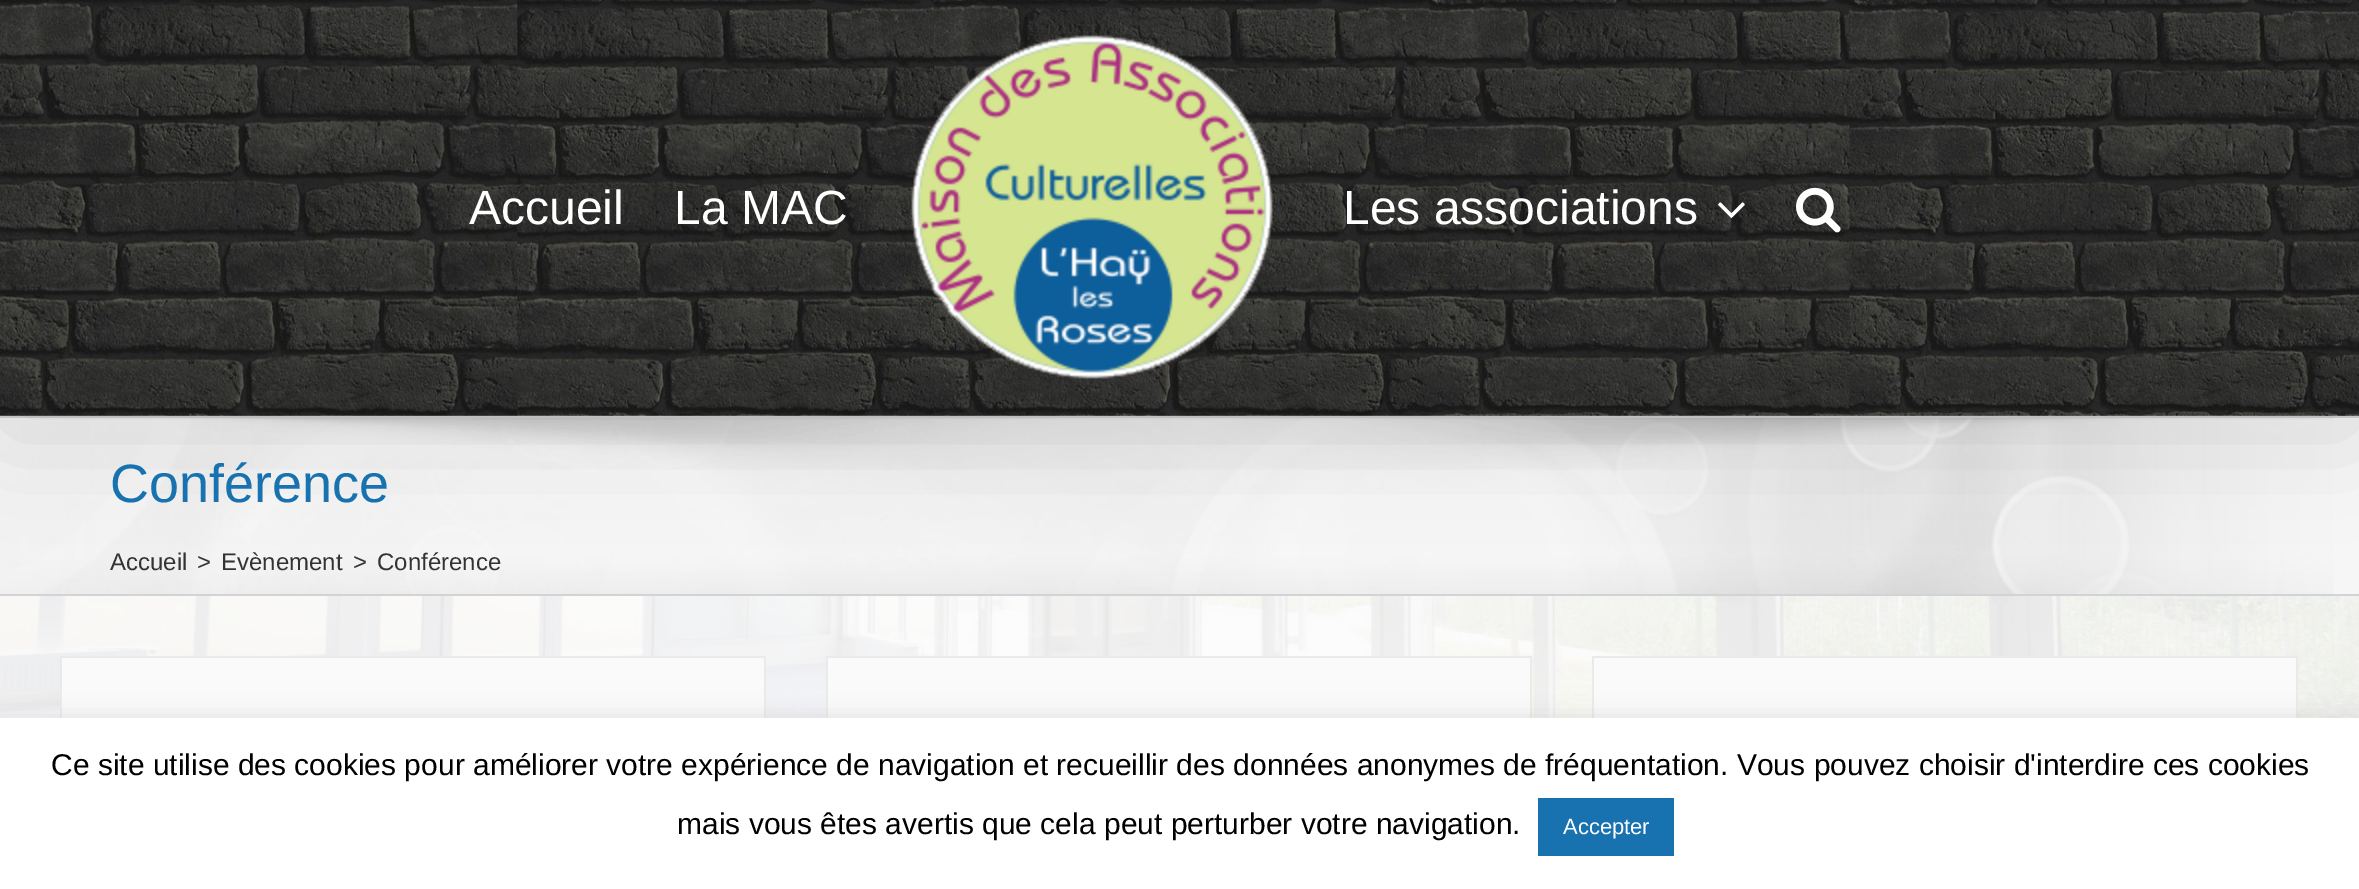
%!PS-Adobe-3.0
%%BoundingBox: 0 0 2359 889
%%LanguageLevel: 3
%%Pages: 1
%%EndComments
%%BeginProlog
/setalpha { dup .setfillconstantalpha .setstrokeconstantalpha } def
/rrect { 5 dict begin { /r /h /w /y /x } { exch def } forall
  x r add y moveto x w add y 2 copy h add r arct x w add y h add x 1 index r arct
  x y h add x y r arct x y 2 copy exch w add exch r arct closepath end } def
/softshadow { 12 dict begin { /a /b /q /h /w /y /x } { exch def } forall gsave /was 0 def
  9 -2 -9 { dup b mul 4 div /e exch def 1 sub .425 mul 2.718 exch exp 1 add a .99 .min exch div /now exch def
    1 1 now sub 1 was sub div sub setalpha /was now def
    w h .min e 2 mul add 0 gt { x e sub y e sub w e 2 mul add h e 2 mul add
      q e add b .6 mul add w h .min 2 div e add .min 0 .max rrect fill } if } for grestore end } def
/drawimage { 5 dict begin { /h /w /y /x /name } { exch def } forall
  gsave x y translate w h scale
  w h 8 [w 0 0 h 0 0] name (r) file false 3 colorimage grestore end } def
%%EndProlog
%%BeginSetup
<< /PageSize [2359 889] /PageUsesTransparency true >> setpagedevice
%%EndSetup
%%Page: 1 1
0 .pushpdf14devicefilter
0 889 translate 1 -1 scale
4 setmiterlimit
1 setgray
0 0 2359 889 rectfill
(images/1.raw) 0 415 2359 303 drawimage
0.965 setgray
0 418 2359 176 rectfill
(images/6.raw) 0 418 2334 176 drawimage
0.824 0.827 0.831 setrgbcolor
0 416 2359 2 rectfill
0 setgray
4 24 2352 408 0 50 0.14 softshadow
(images/2.raw) 0 0 2359 416 drawimage
(images/3.raw) 911 35 362 344 drawimage
(images/4.raw) 1718 202 27 16 drawimage
(images/5.raw) 1796 187 45 46 drawimage
0.824 0.827 0.831 setrgbcolor
0 594 2359 2 rectfill
0.48 setalpha
0.98 setgray
0 596 2359 122 rectfill
1 setalpha
62 658 702 60 rectfill
0.922 0.918 0.918 setrgbcolor
60 656 706 2 rectfill
764 656 2 62 rectfill
60 656 2 62 rectfill
0.98 setgray
828 658 702 60 rectfill
0.922 0.918 0.918 setrgbcolor
826 656 706 2 rectfill
1530 656 2 62 rectfill
826 656 2 62 rectfill
0.98 setgray
1594 658 702 60 rectfill
0.922 0.918 0.918 setrgbcolor
1592 656 706 2 rectfill
2296 656 2 62 rectfill
1592 656 2 62 rectfill
0.675 0.671 0.671 setrgbcolor
0 716 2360 172 0 10 0.3 softshadow
1 setgray
0 718 2359 171 rectfill
0.09 0.447 0.686 setrgbcolor
1538 798 136 58 rectfill
/LiberationSans-Regular [48 0 0 -48 0 0] selectfont
1 setgray
469 224 moveto (Accueil) show
674 224 moveto (La MAC) show
1343 224 moveto (Les associations) show
/LiberationSans-Regular [54 0 0 -54 0 0] selectfont
0.09 0.447 0.686 setrgbcolor
110 502 moveto (Conférence) show
/LiberationSans-Regular [24 0 0 -24 0 0] selectfont
0.2 setgray
110 570 moveto (Accueil) show
197 570 moveto (>) show
221 570 moveto (Evènement) show
353 570 moveto (>) show
377 570 moveto (Conférence) show
/LiberationSans-Regular [30 0 0 -30 0 0] selectfont
0 setgray
51 775 moveto (Ce site utilise des cookies pour améliorer votre expérience de navigation et recueillir des données anonymes de fréquentation. Vous pouvez choisir d'interdire ces cookies) show
677 834 moveto (mais vous êtes avertis que cela peut perturber votre navigation.) show
/LiberationSans-Regular [22 0 0 -22 0 0] selectfont
1 setgray
1563 834 moveto (Accepter) show
.poppdf14devicefilter showpage
%%EOF
